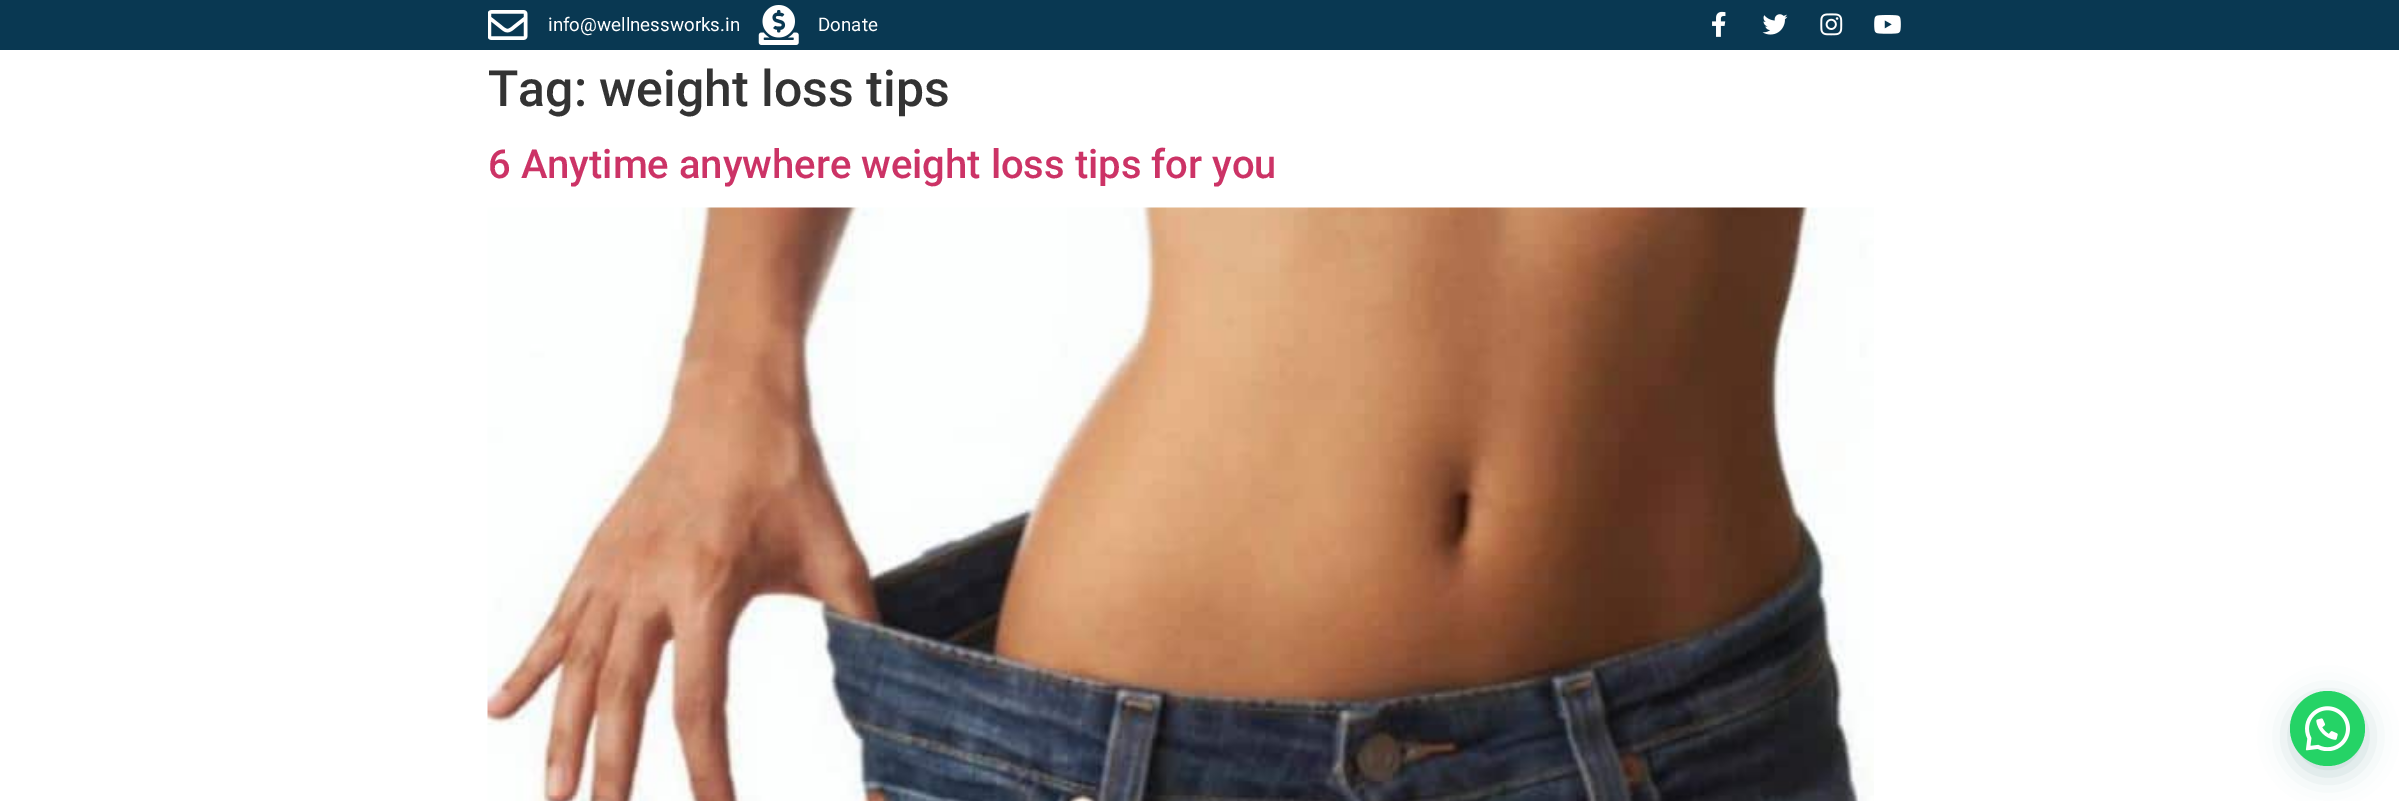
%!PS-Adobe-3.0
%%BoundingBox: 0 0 2399 801
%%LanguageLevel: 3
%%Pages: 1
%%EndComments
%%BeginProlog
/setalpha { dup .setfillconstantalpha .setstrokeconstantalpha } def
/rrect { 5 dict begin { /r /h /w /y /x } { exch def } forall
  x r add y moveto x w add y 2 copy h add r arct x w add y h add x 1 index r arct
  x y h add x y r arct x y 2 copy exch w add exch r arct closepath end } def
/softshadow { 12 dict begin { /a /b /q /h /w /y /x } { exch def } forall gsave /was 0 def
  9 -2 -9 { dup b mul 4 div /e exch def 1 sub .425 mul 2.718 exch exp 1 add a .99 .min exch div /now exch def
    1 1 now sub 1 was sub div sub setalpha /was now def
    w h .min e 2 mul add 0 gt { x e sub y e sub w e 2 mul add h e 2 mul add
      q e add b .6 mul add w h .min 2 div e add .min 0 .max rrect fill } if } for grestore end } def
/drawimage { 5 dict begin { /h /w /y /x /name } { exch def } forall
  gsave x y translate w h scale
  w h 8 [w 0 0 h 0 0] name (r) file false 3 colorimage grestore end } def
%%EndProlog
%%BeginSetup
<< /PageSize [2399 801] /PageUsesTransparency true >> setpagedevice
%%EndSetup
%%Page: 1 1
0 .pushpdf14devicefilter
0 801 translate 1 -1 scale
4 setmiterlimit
1 setgray
0 0 2399 801 rectfill
0.035 0.22 0.322 setrgbcolor
0 0 2399 50 rectfill
(images/1.raw) 488 10 40 30 drawimage
(images/2.raw) 758 5 41 40 drawimage
(images/3.raw) 1712 11 14 26 drawimage
(images/4.raw) 1762 14 26 21 drawimage
(images/5.raw) 1820 13 23 23 drawimage
(images/6.raw) 1874 15 27 19 drawimage
(images/7.raw) 487 207 1387 594 drawimage
0.027 0.369 0.329 setrgbcolor
2291 699 75 75 37.5 15 0.24 softshadow
0.145 0.827 0.4 setrgbcolor
newpath 2327.5 728.5 37.5 0 360 arc closepath fill
(images/8.raw) 2305 706 45 45 drawimage
/Roboto-Regular [18.75 0 0 -18.75 0 0] selectfont
1 setgray
548 31 moveto (info@wellnessworks.in) show
818 31 moveto (Donate) show
/Roboto-Medium [50 0 0 -50 0 0] selectfont
0.2 setgray
488 106 moveto (Tag: weight loss tips) show
/Roboto-Medium [40 0 0 -40 0 0] selectfont
0.8 0.2 0.4 setrgbcolor
488 178 moveto (6 Anytime anywhere weight loss tips for you) show
.poppdf14devicefilter showpage
%%EOF
